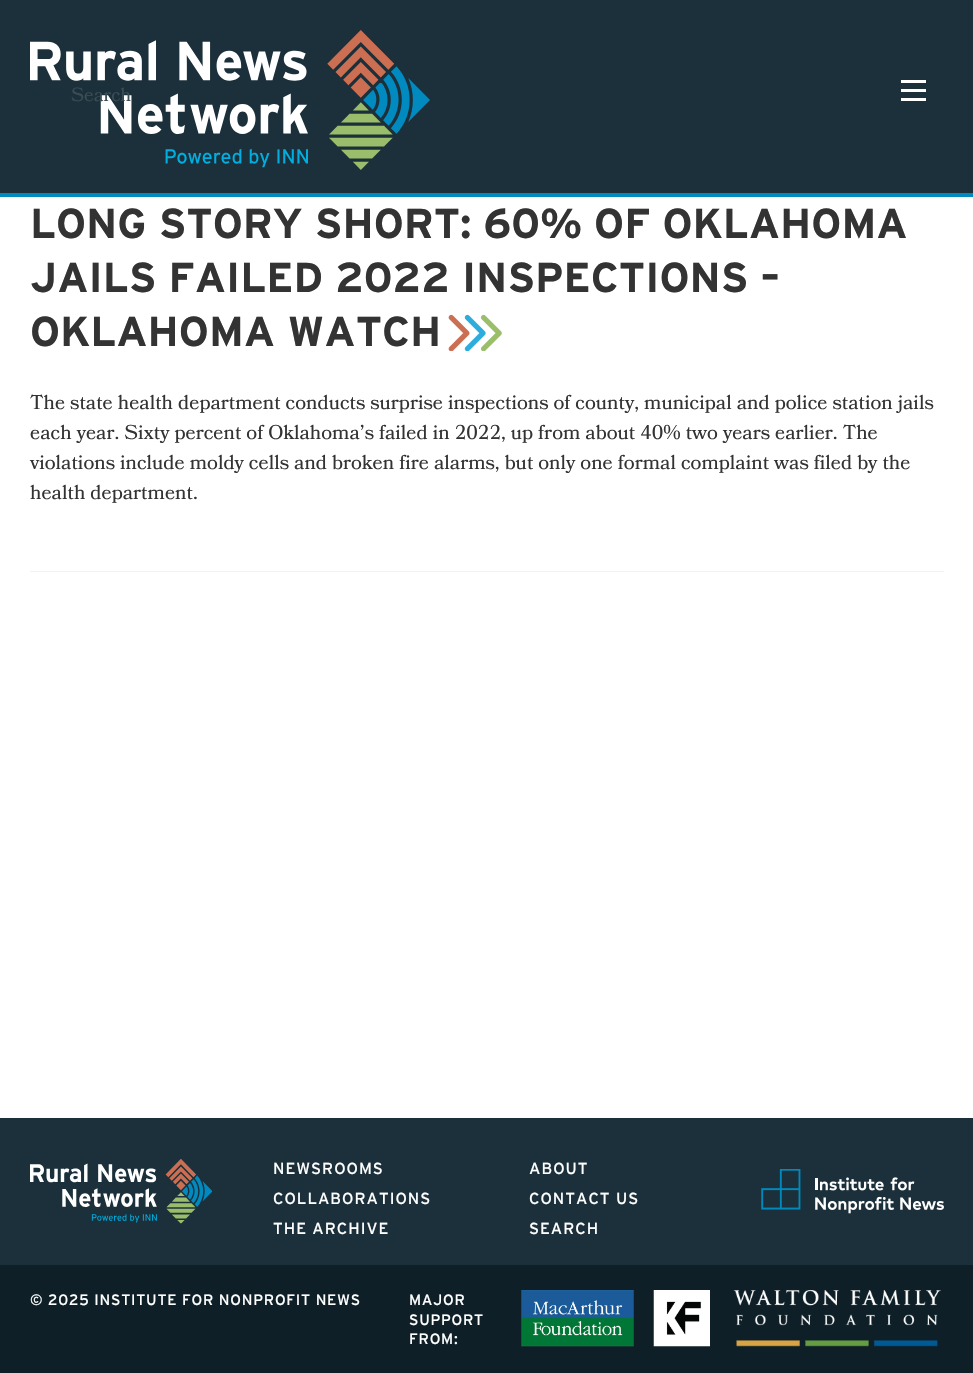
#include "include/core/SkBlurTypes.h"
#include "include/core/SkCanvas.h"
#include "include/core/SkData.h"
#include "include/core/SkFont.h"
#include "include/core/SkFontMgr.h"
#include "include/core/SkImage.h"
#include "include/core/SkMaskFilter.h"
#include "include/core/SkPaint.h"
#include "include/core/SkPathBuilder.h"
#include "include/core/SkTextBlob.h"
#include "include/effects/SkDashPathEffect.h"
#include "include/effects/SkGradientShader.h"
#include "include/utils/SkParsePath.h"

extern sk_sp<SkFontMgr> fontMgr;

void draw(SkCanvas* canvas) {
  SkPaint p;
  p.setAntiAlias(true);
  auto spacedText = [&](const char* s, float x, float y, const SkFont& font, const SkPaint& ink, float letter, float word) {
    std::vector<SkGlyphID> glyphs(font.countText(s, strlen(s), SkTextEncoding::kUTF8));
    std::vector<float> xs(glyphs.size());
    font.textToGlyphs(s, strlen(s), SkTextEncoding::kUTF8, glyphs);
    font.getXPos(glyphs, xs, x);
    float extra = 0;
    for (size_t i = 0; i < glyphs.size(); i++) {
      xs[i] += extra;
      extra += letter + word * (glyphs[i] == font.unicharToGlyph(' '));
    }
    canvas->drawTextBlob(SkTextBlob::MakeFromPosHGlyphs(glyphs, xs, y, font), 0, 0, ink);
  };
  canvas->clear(SK_ColorWHITE);
  p.setColor(SkColorSetRGB(27, 48, 58));
  canvas->drawRect(SkRect::MakeLTRB(0, 0, 973, 193), p);
  canvas->drawImageRect(SkImages::DeferredFromEncodedData(SkData::MakeFromFileName("images/1.png")), SkRect::MakeLTRB(30, 30, 430, 170), SkSamplingOptions());
  p.setColor(SK_ColorWHITE);
  canvas->drawRect(SkRect::MakeLTRB(901, 89, 926, 92), p);
  canvas->drawRect(SkRect::MakeLTRB(901, 80, 926, 83), p);
  canvas->drawRect(SkRect::MakeLTRB(901, 98, 926, 101), p);
  p.setColor(SkColorSetRGB(0, 139, 192));
  canvas->drawRect(SkRect::MakeLTRB(0, 193, 973, 197), p);
  canvas->drawImageRect(SkImages::DeferredFromEncodedData(SkData::MakeFromFileName("images/2.png")), SkRect::MakeLTRB(448, 314, 502, 351), SkSamplingOptions());
  p.setColor(SkColorSetRGB(242, 242, 242));
  canvas->drawRect(SkRect::MakeLTRB(30, 571, 944, 572), p);
  p.setColor(SkColorSetRGB(27, 48, 58));
  canvas->drawRect(SkRect::MakeLTRB(0, 1118, 973, 1265), p);
  canvas->drawImageRect(SkImages::DeferredFromEncodedData(SkData::MakeFromFileName("images/3.png")), SkRect::MakeLTRB(30, 1159, 213, 1224), SkSamplingOptions());
  canvas->drawImageRect(SkImages::DeferredFromEncodedData(SkData::MakeFromFileName("images/4.png")), SkRect::MakeLTRB(761, 1169, 944, 1214), SkSamplingOptions());
  p.setColor(SkColorSetRGB(14, 31, 39));
  canvas->drawRect(SkRect::MakeLTRB(0, 1265, 973, 1373), p);
  canvas->drawImageRect(SkImages::DeferredFromEncodedData(SkData::MakeFromFileName("images/5.png")), SkRect::MakeLTRB(521, 1290, 634, 1347), SkSamplingOptions());
  canvas->drawImageRect(SkImages::DeferredFromEncodedData(SkData::MakeFromFileName("images/6.png")), SkRect::MakeLTRB(653, 1290, 710, 1347), SkSamplingOptions());
  canvas->drawImageRect(SkImages::DeferredFromEncodedData(SkData::MakeFromFileName("images/7.png")), SkRect::MakeLTRB(733, 1290, 941, 1347), SkSamplingOptions());
  SkFont font1(fontMgr->matchFamilyStyle("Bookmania", SkFontStyle::Normal()), 19);
  font1.setSubpixel(true);
  p.setColor(SkColorSetRGB(58, 76, 84));
  canvas->drawString("Search", 71, 101, font1, p);
  SkFont font2(fontMgr->matchFamilyStyle("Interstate", SkFontStyle::Bold()), 41.85f);
  font2.setSubpixel(true);
  p.setColor(SkColorSetRGB(51, 51, 51));
  canvas->drawString("LONG STORY SHORT: 60% OF OKLAHOMA", 30, 238, font2, p);
  canvas->drawString("JAILS FAILED 2022 INSPECTIONS –", 30, 292, font2, p);
  canvas->drawString("OKLAHOMA WATCH", 30, 346, font2, p);
  SkFont font3(fontMgr->matchFamilyStyle("Bookmania", SkFontStyle::Normal()), 20);
  font3.setSubpixel(true);
  canvas->drawString("The state health department conducts surprise inspections of county, municipal and police station jails", 30, 409, font3, p);
  canvas->drawString("each year. Sixty percent of Oklahoma’s failed in 2022, up from about 40% two years earlier. The", 30, 439, font3, p);
  canvas->drawString("violations include moldy cells and broken fire alarms, but only one formal complaint was filed by the", 30, 469, font3, p);
  canvas->drawString("health department.", 30, 499, font3, p);
  SkFont font4(fontMgr->matchFamilyStyle("Interstate", SkFontStyle::Normal()), 16);
  font4.setSubpixel(true);
  p.setColor(SK_ColorWHITE);
  spacedText("NEWSROOMS", 273, 1174, font4, p, 1, 0);
  spacedText("ABOUT", 529, 1174, font4, p, 1, 0);
  spacedText("COLLABORATIONS", 273, 1204, font4, p, 1, 0);
  spacedText("CONTACT US", 529, 1204, font4, p, 1, 0);
  spacedText("THE ARCHIVE", 273, 1234, font4, p, 1, 0);
  spacedText("SEARCH", 529, 1234, font4, p, 1, 0);
  SkFont font5(fontMgr->matchFamilyStyle("Interstate", SkFontStyle::Normal()), 15);
  font5.setSubpixel(true);
  spacedText("© 2025 INSTITUTE FOR NONPROFIT NEWS", 30, 1305, font5, p, 0.75f, 0);
  spacedText("MAJOR", 409, 1305, font5, p, 0.75f, 0);
  spacedText("SUPPORT", 409, 1325, font5, p, 0.75f, 0);
  spacedText("FROM:", 409, 1344, font5, p, 0.75f, 0);
}
